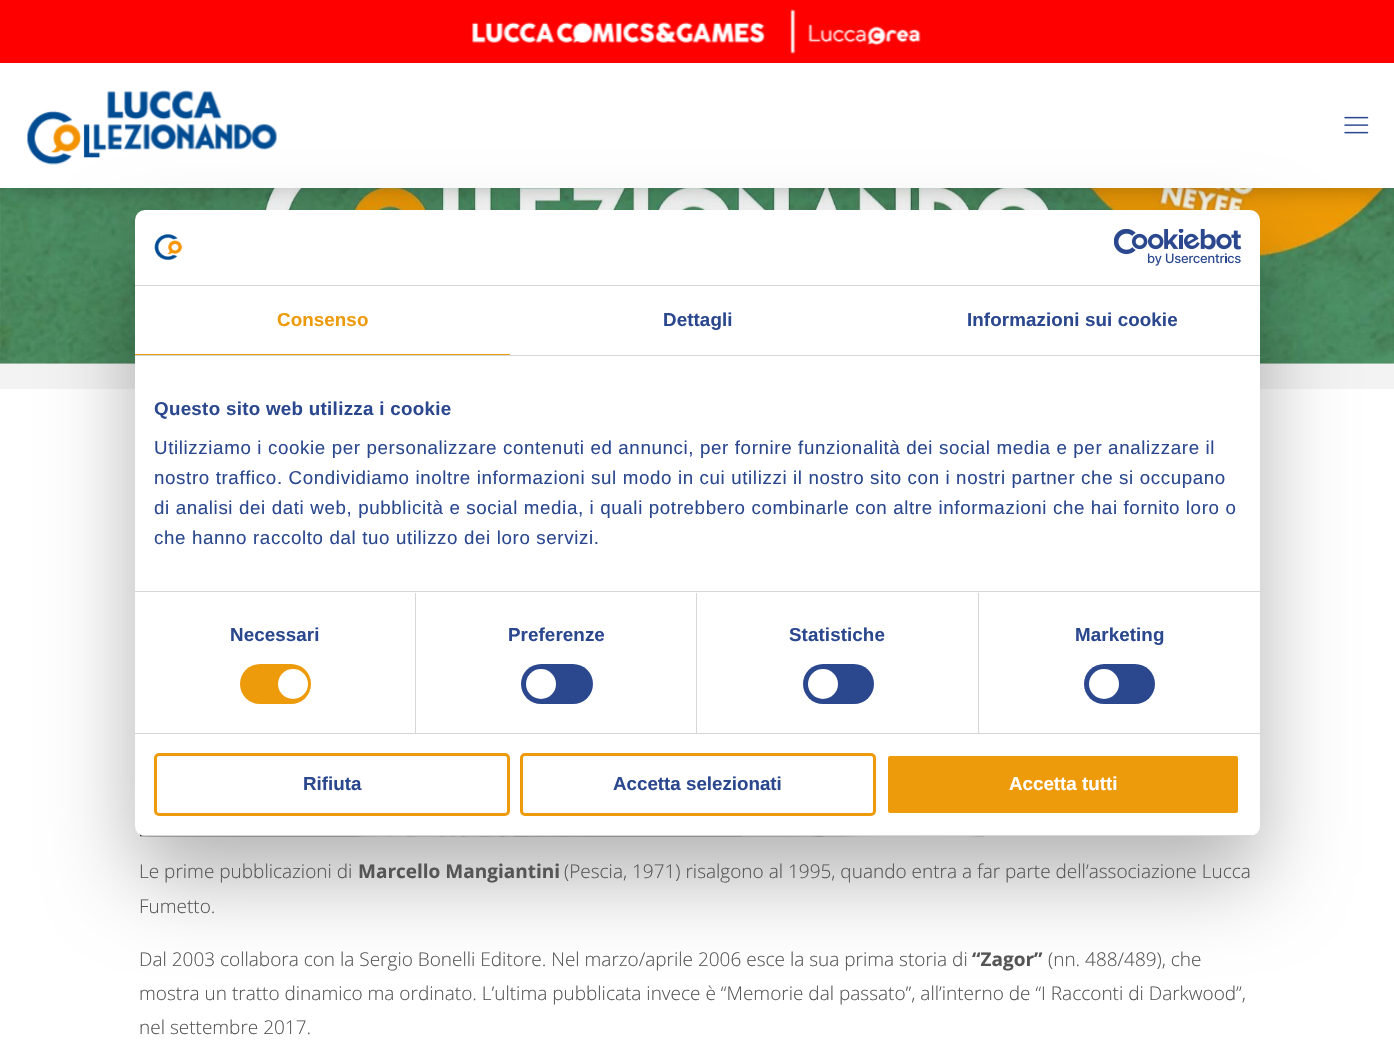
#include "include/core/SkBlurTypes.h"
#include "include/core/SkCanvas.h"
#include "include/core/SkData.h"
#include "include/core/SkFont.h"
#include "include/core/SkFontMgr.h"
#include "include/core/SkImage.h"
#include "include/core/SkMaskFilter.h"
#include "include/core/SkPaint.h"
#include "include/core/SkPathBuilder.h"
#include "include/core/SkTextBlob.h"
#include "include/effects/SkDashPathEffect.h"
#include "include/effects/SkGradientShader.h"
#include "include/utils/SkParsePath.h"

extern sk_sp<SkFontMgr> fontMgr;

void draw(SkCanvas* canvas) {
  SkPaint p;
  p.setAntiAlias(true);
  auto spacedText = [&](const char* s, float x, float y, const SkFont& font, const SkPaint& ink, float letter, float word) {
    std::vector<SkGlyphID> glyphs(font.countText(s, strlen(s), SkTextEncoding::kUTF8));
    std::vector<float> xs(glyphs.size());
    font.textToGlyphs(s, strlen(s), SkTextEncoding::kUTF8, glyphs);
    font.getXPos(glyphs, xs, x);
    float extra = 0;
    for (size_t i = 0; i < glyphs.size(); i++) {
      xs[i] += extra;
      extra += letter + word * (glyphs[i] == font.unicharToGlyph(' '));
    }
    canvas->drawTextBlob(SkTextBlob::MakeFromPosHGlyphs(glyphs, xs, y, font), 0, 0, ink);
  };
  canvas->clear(SkColorSetRGB(243, 243, 243));
  canvas->drawImageRect(SkImages::DeferredFromEncodedData(SkData::MakeFromFileName("images/8.png")), SkRect::MakeLTRB(0, 188, 1394, 364), SkSamplingOptions());
  p.setColor(SkColorSetARGB(77, 0, 0, 0));
  p.setMaskFilter(SkMaskFilter::MakeBlur(kNormal_SkBlurStyle, 12.5f));
  canvas->drawRect(SkRect::MakeLTRB(0, 63, 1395, 188), p);
  p.setMaskFilter(nullptr);
  p.setColor(SkColorSetRGB(255, 0, 0));
  canvas->drawRect(SkRect::MakeLTRB(0, 0, 1394, 63), p);
  canvas->drawImageRect(SkImages::DeferredFromEncodedData(SkData::MakeFromFileName("images/1.png")), SkRect::MakeLTRB(471, 22, 765, 43), SkSamplingOptions());
  canvas->drawImageRect(SkImages::DeferredFromEncodedData(SkData::MakeFromFileName("images/2.png")), SkRect::MakeLTRB(790, 9, 796, 54), SkSamplingOptions());
  canvas->drawImageRect(SkImages::DeferredFromEncodedData(SkData::MakeFromFileName("images/3.png")), SkRect::MakeLTRB(808, 23, 921, 46), SkSamplingOptions());
  p.setColor(SK_ColorWHITE);
  canvas->drawRect(SkRect::MakeLTRB(0, 63, 1394, 188), p);
  canvas->drawImageRect(SkImages::DeferredFromEncodedData(SkData::MakeFromFileName("images/6.png")), SkRect::MakeLTRB(27, 90, 277, 165), SkSamplingOptions());
  canvas->drawImageRect(SkImages::DeferredFromEncodedData(SkData::MakeFromFileName("images/7.png")), SkRect::MakeLTRB(1344, 116, 1369, 134), SkSamplingOptions());
  canvas->drawRect(SkRect::MakeLTRB(0, 389, 1394, 1045), p);
  canvas->drawImageRect(SkImages::DeferredFromEncodedData(SkData::MakeFromFileName("images/9.png")), SkRect::MakeLTRB(140, 834, 984, 837), SkSamplingOptions());
  p.setColor(SkColorSetARGB(77, 0, 0, 0));
  p.setMaskFilter(SkMaskFilter::MakeBlur(kNormal_SkBlurStyle, 42.5f));
  canvas->drawRoundRect(SkRect::MakeLTRB(135, 250, 1260, 876), 10, 10, p);
  p.setMaskFilter(nullptr);
  p.setColor(SK_ColorWHITE);
  canvas->drawRoundRect(SkRect::MakeLTRB(135, 210, 1260, 836), 10, 10, p);
  p.setColor(SkColorSetRGB(214, 214, 214));
  canvas->drawRect(SkRect::MakeLTRB(135, 285, 1260, 286), p);
  canvas->drawImageRect(SkImages::DeferredFromEncodedData(SkData::MakeFromFileName("images/4.png")), SkRect::MakeLTRB(154, 234, 183, 261), SkSamplingOptions());
  canvas->drawImageRect(SkImages::DeferredFromEncodedData(SkData::MakeFromFileName("images/5.png")), SkRect::MakeLTRB(1114, 229, 1241, 266), SkSamplingOptions());
  canvas->drawRect(SkRect::MakeLTRB(135, 355, 1260, 356), p);
  p.setColor(SkColorSetRGB(238, 155, 11));
  canvas->drawRect(SkRect::MakeLTRB(135, 354, 510, 355), p);
  p.setColor(SkColorSetRGB(214, 214, 214));
  canvas->drawRect(SkRect::MakeLTRB(135, 591, 1260, 592), p);
  canvas->drawRect(SkRect::MakeLTRB(135, 733, 1260, 734), p);
  canvas->drawRect(SkRect::MakeLTRB(415, 593, 416, 733), p);
  p.setColor(SkColorSetRGB(238, 155, 11));
  canvas->drawRoundRect(SkRect::MakeLTRB(240, 664, 311, 704), 20, 20, p);
  p.setColor(SK_ColorWHITE);
  canvas->drawCircle(293, 684, 15, p);
  p.setColor(SkColorSetRGB(214, 214, 214));
  canvas->drawRect(SkRect::MakeLTRB(696, 593, 697, 733), p);
  p.setColor(SkColorSetRGB(43, 72, 143));
  canvas->drawRoundRect(SkRect::MakeLTRB(521, 664, 593, 704), 20, 20, p);
  p.setColor(SK_ColorWHITE);
  canvas->drawCircle(541, 684, 15, p);
  p.setColor(SkColorSetRGB(214, 214, 214));
  canvas->drawRect(SkRect::MakeLTRB(978, 593, 979, 733), p);
  p.setColor(SkColorSetRGB(43, 72, 143));
  canvas->drawRoundRect(SkRect::MakeLTRB(803, 664, 874, 704), 20, 20, p);
  p.setColor(SK_ColorWHITE);
  canvas->drawCircle(823, 684, 15, p);
  p.setColor(SkColorSetRGB(43, 72, 143));
  canvas->drawRoundRect(SkRect::MakeLTRB(1084, 664, 1155, 704), 20, 20, p);
  p.setColor(SK_ColorWHITE);
  canvas->drawCircle(1104, 684, 15, p);
  canvas->save();
  canvas->clipPath(SkPathBuilder().moveTo(145, 210).lineTo(1250, 210).cubicTo(1255.5f, 210, 1260, 214.5f, 1260, 220).lineTo(1260, 826).cubicTo(1260, 831.5f, 1255.5f, 836, 1250, 836).lineTo(145, 836).cubicTo(139.5f, 836, 135, 831.5f, 135, 826).lineTo(135, 220).cubicTo(135, 214.5f, 139.5f, 210, 145, 210).close().detach(), true);
  p.setColor(SkColorSetRGB(214, 214, 214));
  canvas->drawRect(SkRect::MakeLTRB(135, 835, 1260, 836), p);
  canvas->restore();
  p.setStyle(SkPaint::kStroke_Style);
  p.setStrokeWidth(3);
  p.setColor(SkColorSetRGB(238, 155, 11));
  canvas->drawRoundRect(SkRect::MakeLTRB(155.5f, 754.5f, 508.5f, 814.5f), 3.5f, 3.5f, p);
  canvas->drawRoundRect(SkRect::MakeLTRB(521.5f, 754.5f, 874.5f, 814.5f), 3.5f, 3.5f, p);
  p.setStyle(SkPaint::kFill_Style);
  canvas->drawRoundRect(SkRect::MakeLTRB(886.5f, 754.5f, 1239.5f, 814.5f), 3.5f, 3.5f, p);
  p.setStyle(SkPaint::kStroke_Style);
  p.setColor(SK_ColorWHITE);
  canvas->drawRoundRect(SkRect::MakeLTRB(886.5f, 754.5f, 1239.5f, 814.5f), 3.5f, 3.5f, p);
  SkFont font1(fontMgr->matchFamilyStyle("Liberation Sans", SkFontStyle::Bold()), 18.75f);
  font1.setSubpixel(true);
  p.setStyle(SkPaint::kFill_Style);
  p.setColor(SkColorSetRGB(238, 155, 11));
  spacedText("Consenso", 277, 326, font1, p, 0.1f, 0);
  p.setColor(SkColorSetRGB(43, 72, 143));
  spacedText("Dettagli", 663, 326, font1, p, 0.1f, 0);
  spacedText("Informazioni sui cookie", 967, 326, font1, p, 0.1f, 0);
  spacedText("Questo sito web utilizza i cookie", 154, 415, font1, p, 0.3f, 0);
  SkFont font2(fontMgr->matchFamilyStyle("Liberation Sans", SkFontStyle::Normal()), 18.75f);
  font2.setSubpixel(true);
  spacedText("Utilizziamo i cookie per personalizzare contenuti ed annunci, per fornire funzionalità dei social media e per analizzare il", 154, 454, font2, p, 0.62f, 0);
  spacedText("nostro traffico. Condividiamo inoltre informazioni sul modo in cui utilizzi il nostro sito con i nostri partner che si occupano", 154, 484, font2, p, 0.62f, 0);
  spacedText("di analisi dei dati web, pubblicità e social media, i quali potrebbero combinarle con altre informazioni che hai fornito loro o", 154, 514, font2, p, 0.62f, 0);
  spacedText("che hanno raccolto dal tuo utilizzo dei loro servizi.", 154, 544, font2, p, 0.62f, 0);
  spacedText("Necessari", 230, 641, font1, p, 0.1f, 0);
  spacedText("Preferenze", 508, 641, font1, p, 0.1f, 0);
  spacedText("Statistiche", 789, 641, font1, p, 0.1f, 0);
  spacedText("Marketing", 1075, 641, font1, p, 0.1f, 0);
  canvas->drawString("Rifiuta", 303, 790, font1, p);
  canvas->drawString("Accetta selezionati", 613, 790, font1, p);
  p.setColor(SK_ColorWHITE);
  canvas->drawString("Accetta tutti", 1009, 790, font1, p);
  SkFont font3(fontMgr->matchFamilyStyle("Open Sans", SkFontStyle(300, SkFontStyle::kNormal_Width, SkFontStyle::kUpright_Slant)), 19);
  font3.setSubpixel(true);
  p.setColor(SkColorSetRGB(85, 85, 85));
  canvas->drawString("Le prime pubblicazioni di", 139, 878, font3, p);
  SkFont font4(fontMgr->matchFamilyStyle("Open Sans", SkFontStyle::Bold()), 19);
  font4.setSubpixel(true);
  canvas->drawString("Marcello Mangiantini", 358, 878, font4, p);
  canvas->drawString("(Pescia, 1971) risalgono al 1995, quando entra a far parte dell’associazione Lucca", 564, 878, font3, p);
  canvas->drawString("Fumetto.", 139, 913, font3, p);
  canvas->drawString("Dal 2003 collabora con la Sergio Bonelli Editore. Nel marzo/aprile 2006 esce la sua prima storia di", 139, 966, font3, p);
  canvas->drawString("“Zagor”", 972, 966, font4, p);
  canvas->drawString("(nn. 488/489), che", 1048, 966, font3, p);
  canvas->drawString("mostra un tratto dinamico ma ordinato. L’ultima pubblicata invece è “Memorie dal passato”, all’interno de “I Racconti di Darkwood”,", 139, 1000, font3, p);
  canvas->drawString("nel settembre 2017.", 139, 1034, font3, p);
}
